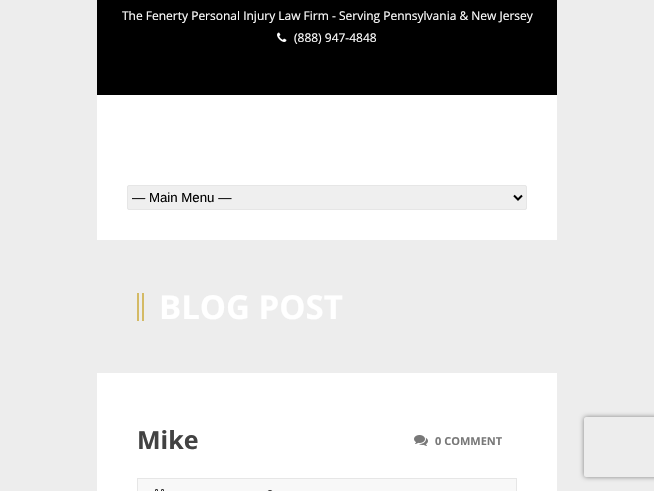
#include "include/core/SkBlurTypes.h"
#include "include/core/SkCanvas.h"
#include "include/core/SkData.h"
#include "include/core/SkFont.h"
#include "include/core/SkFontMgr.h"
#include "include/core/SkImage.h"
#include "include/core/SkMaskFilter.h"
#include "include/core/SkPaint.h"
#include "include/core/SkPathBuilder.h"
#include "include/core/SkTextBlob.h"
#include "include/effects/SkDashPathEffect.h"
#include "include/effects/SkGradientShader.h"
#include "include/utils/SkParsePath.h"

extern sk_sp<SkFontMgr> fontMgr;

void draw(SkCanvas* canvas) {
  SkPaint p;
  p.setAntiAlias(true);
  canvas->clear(SkColorSetRGB(237, 237, 237));
  p.setColor(SK_ColorBLACK);
  canvas->drawRect(SkRect::MakeLTRB(97, 0, 557, 95), p);
  canvas->drawImageRect(SkImages::DeferredFromEncodedData(SkData::MakeFromFileName("images/1.png")), SkRect::MakeLTRB(277, 32, 287, 42), SkSamplingOptions());
  p.setColor(SK_ColorWHITE);
  canvas->drawRect(SkRect::MakeLTRB(97, 95, 557, 240), p);
  p.setColor(SkColorSetRGB(239, 239, 239));
  canvas->drawRoundRect(SkRect::MakeLTRB(127.5f, 185.5f, 526.5f, 209.5f), 1.5f, 1.5f, p);
  p.setStyle(SkPaint::kStroke_Style);
  p.setStrokeWidth(1);
  p.setColor(SkColorSetRGB(230, 230, 230));
  canvas->drawRoundRect(SkRect::MakeLTRB(127.5f, 185.5f, 526.5f, 209.5f), 1.5f, 1.5f, p);
  p.setStrokeWidth(2);
  p.setColor(SK_ColorBLACK);
  canvas->drawPath(SkPathBuilder().moveTo(514, 195.5f).lineTo(518, 199.5f).lineTo(522, 195.5f).detach(), p);
  p.setStyle(SkPaint::kFill_Style);
  p.setColor(SkColorSetRGB(212, 186, 101));
  canvas->drawRect(SkRect::MakeLTRB(137, 293, 139, 321), p);
  canvas->drawRect(SkRect::MakeLTRB(142, 293, 144, 321), p);
  p.setColor(SK_ColorWHITE);
  canvas->drawRect(SkRect::MakeLTRB(97, 373, 557, 491), p);
  canvas->drawImageRect(SkImages::DeferredFromEncodedData(SkData::MakeFromFileName("images/2.png")), SkRect::MakeLTRB(414, 435, 428, 446), SkSamplingOptions());
  p.setColor(SkColorSetRGB(248, 248, 248));
  canvas->drawRect(SkRect::MakeLTRB(137.5f, 478.5f, 516.5f, 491.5f), p);
  p.setStyle(SkPaint::kStroke_Style);
  p.setStrokeWidth(1);
  p.setColor(SkColorSetRGB(230, 230, 230));
  canvas->drawRect(SkRect::MakeLTRB(137.5f, 478.5f, 516.5f, 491.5f), p);
  canvas->drawImageRect(SkImages::DeferredFromEncodedData(SkData::MakeFromFileName("images/3.png")), SkRect::MakeLTRB(155, 489, 164, 491), SkSamplingOptions());
  canvas->drawImageRect(SkImages::DeferredFromEncodedData(SkData::MakeFromFileName("images/4.png")), SkRect::MakeLTRB(267, 490, 273, 491), SkSamplingOptions());
  canvas->save();
  canvas->clipPath(SkPathBuilder(SkPathFillType::kEvenOdd).moveTo(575, 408).lineTo(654, 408).lineTo(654, 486).lineTo(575, 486).close().moveTo(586, 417).lineTo(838, 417).cubicTo(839, 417, 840, 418, 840, 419).lineTo(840, 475).cubicTo(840, 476, 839, 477, 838, 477).lineTo(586, 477).cubicTo(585, 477, 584, 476, 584, 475).lineTo(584, 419).cubicTo(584, 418, 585, 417, 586, 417).close().detach(), true);
  p.setStyle(SkPaint::kFill_Style);
  p.setColor(SkColorSetRGB(128, 128, 128));
  p.setMaskFilter(SkMaskFilter::MakeBlur(kNormal_SkBlurStyle, 2.5f));
  canvas->drawRoundRect(SkRect::MakeLTRB(584, 417, 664, 477), 2, 2, p);
  p.setMaskFilter(nullptr);
  canvas->restore();
  SkFont font1(fontMgr->matchFamilyStyle("Open Sans", SkFontStyle::Normal()), 12);
  font1.setSubpixel(true);
  p.setColor(SK_ColorWHITE);
  canvas->drawString("The Fenerty Personal Injury Law Firm - Serving Pennsylvania & New Jersey", 122, 20, font1, p);
  canvas->drawString("(888) 947-4848", 294, 42, font1, p);
  SkFont font2(fontMgr->matchFamilyStyle("Liberation Sans", SkFontStyle::Normal()), 13.25f);
  font2.setSubpixel(true);
  p.setColor(SK_ColorBLACK);
  canvas->drawString("— Main Menu —", 132, 202, font2, p);
  SkFont font3(fontMgr->matchFamilyStyle("Open Sans", SkFontStyle::Bold()), 33);
  font3.setSubpixel(true);
  p.setColor(SK_ColorWHITE);
  canvas->drawString("BLOG POST", 159, 319, font3, p);
  SkFont font4(fontMgr->matchFamilyStyle("Open Sans", SkFontStyle::Bold()), 25);
  font4.setSubpixel(true);
  p.setColor(SkColorSetRGB(66, 66, 66));
  canvas->drawString("Mike", 137, 449, font4, p);
  SkFont font5(fontMgr->matchFamilyStyle("Open Sans", SkFontStyle::Bold()), 11);
  font5.setSubpixel(true);
  p.setColor(SkColorSetRGB(120, 120, 120));
  canvas->drawString("0 COMMENT", 435, 445, font5, p);
}
